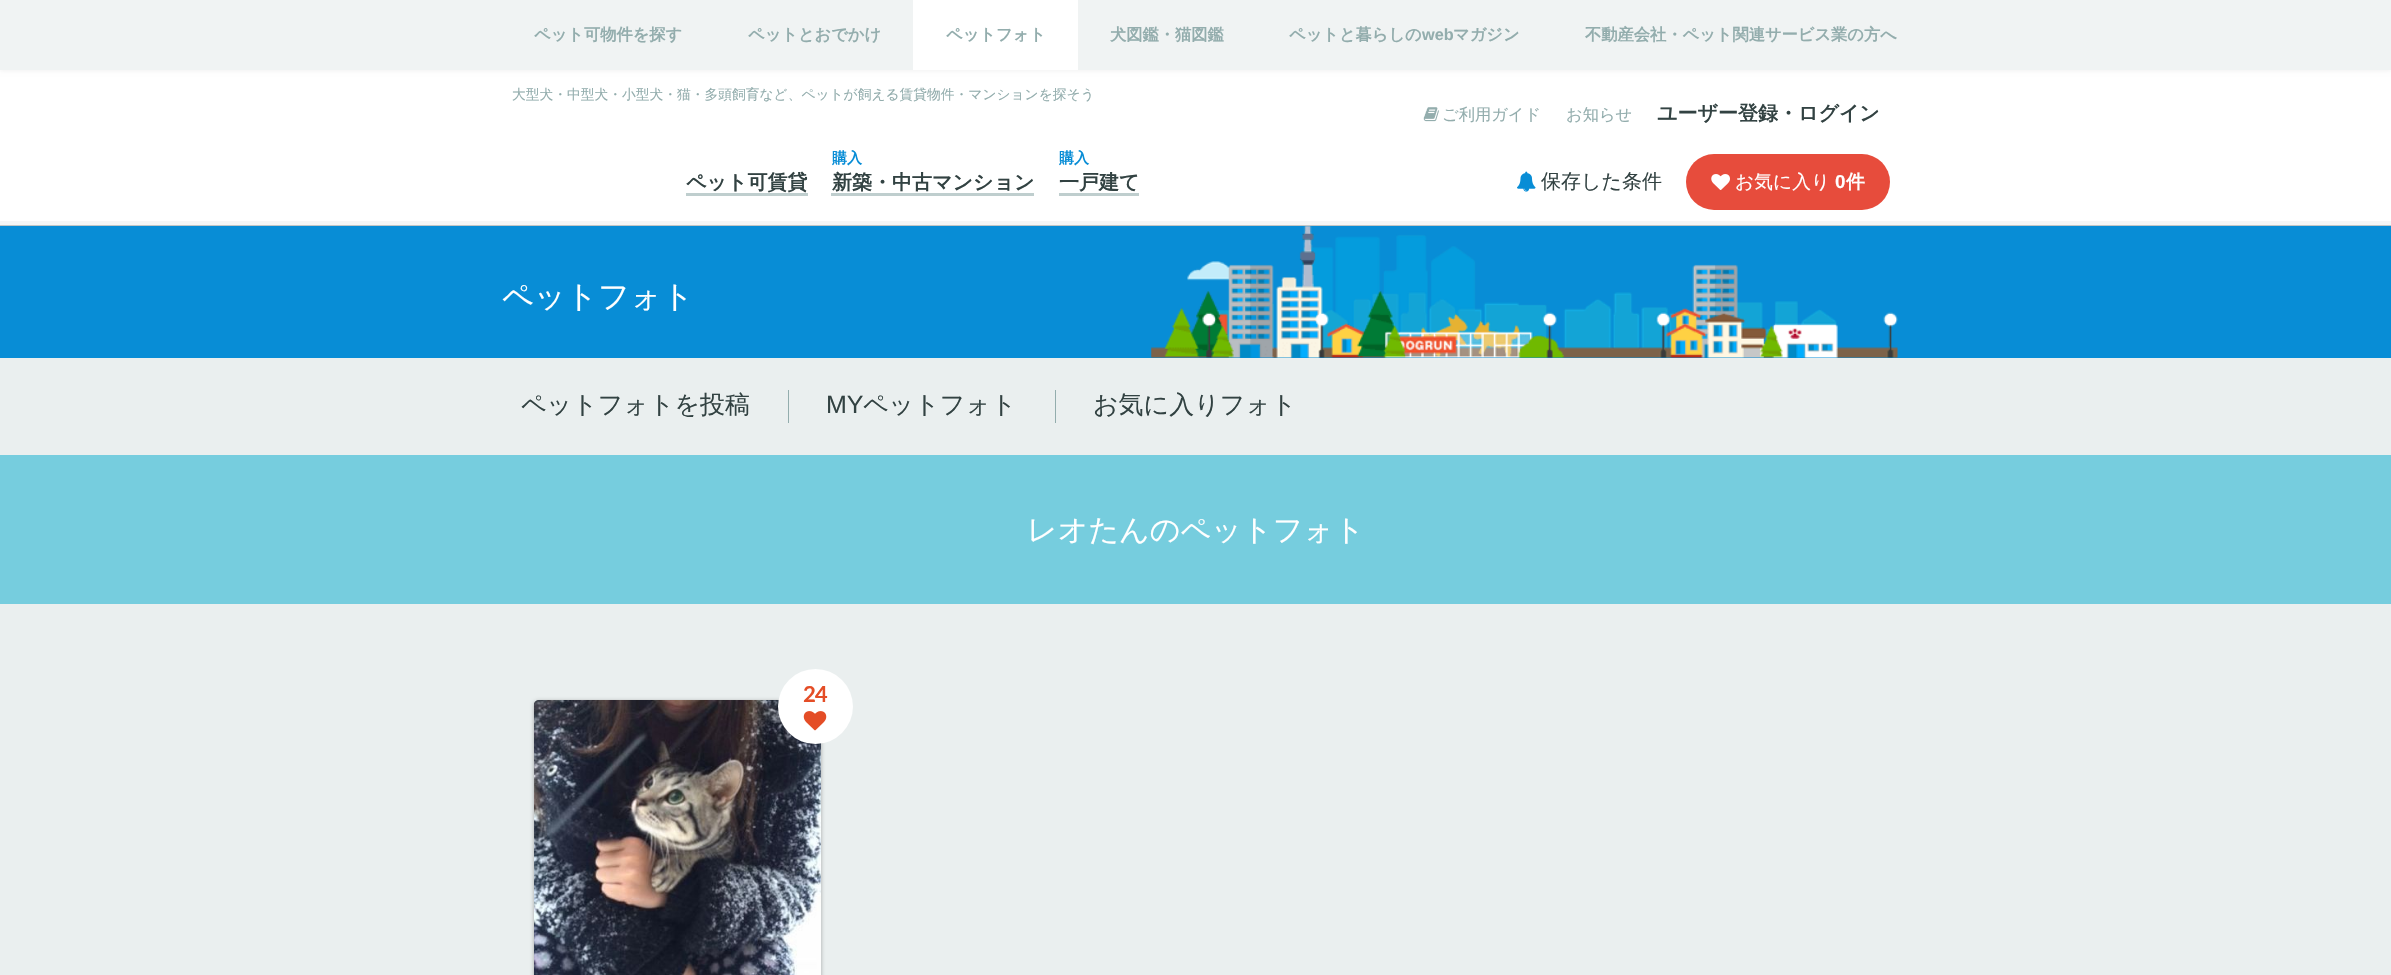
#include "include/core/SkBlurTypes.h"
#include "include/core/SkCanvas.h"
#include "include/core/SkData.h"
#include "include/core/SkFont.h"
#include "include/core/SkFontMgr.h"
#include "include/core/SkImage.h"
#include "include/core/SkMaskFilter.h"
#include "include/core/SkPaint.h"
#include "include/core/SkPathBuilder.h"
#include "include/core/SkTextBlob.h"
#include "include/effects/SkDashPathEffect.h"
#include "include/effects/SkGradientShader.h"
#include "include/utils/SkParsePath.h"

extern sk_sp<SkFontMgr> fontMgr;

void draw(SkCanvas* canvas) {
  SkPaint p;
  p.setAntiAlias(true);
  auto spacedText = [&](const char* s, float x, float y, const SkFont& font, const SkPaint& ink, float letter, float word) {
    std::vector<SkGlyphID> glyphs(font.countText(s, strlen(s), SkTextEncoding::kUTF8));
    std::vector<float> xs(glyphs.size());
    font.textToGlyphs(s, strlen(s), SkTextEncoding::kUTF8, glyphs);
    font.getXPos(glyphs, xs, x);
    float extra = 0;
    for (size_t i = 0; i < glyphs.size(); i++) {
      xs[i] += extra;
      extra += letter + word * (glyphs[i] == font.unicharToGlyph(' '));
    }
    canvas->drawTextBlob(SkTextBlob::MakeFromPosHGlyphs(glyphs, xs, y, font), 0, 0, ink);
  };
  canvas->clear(SkColorSetRGB(234, 239, 239));
  p.setColor(SK_ColorWHITE);
  canvas->drawRect(SkRect::MakeLTRB(0, 70, 2391, 221), p);
  p.setColor(SkColorSetARGB(13, 0, 0, 0));
  p.setMaskFilter(SkMaskFilter::MakeBlur(kNormal_SkBlurStyle, 2));
  canvas->drawRect(SkRect::MakeLTRB(0, 1, 2391, 71), p);
  p.setMaskFilter(nullptr);
  p.setColor(SkColorSetRGB(240, 243, 243));
  canvas->drawRect(SkRect::MakeLTRB(0, 0, 2391, 70), p);
  p.setColor(SK_ColorWHITE);
  canvas->drawRect(SkRect::MakeLTRB(913, 0, 1078, 70), p);
  p.setColor(SkColorSetRGB(245, 246, 246));
  canvas->drawRect(SkRect::MakeLTRB(0, 221, 2391, 225), p);
  p.setColor(SkColorSetRGB(194, 198, 198));
  canvas->drawRect(SkRect::MakeLTRB(0, 225, 2391, 226), p);
  canvas->drawImageRect(SkImages::DeferredFromEncodedData(SkData::MakeFromFileName("images/1.png")), SkRect::MakeLTRB(1423, 107, 1439, 122), SkSamplingOptions());
  p.setColor(SkColorSetRGB(191, 206, 206));
  canvas->drawRect(SkRect::MakeLTRB(686, 193, 808, 196), p);
  canvas->drawRect(SkRect::MakeLTRB(831, 193, 1034, 196), p);
  canvas->drawRect(SkRect::MakeLTRB(1059, 193, 1139, 196), p);
  canvas->drawImageRect(SkImages::DeferredFromEncodedData(SkData::MakeFromFileName("images/2.png")), SkRect::MakeLTRB(1517, 171, 1536, 192), SkSamplingOptions());
  p.setColor(SkColorSetRGB(231, 76, 60));
  canvas->drawRoundRect(SkRect::MakeLTRB(1686, 154, 1890, 210), 28, 28, p);
  canvas->drawImageRect(SkImages::DeferredFromEncodedData(SkData::MakeFromFileName("images/3.png")), SkRect::MakeLTRB(1711, 174, 1730, 190), SkSamplingOptions());
  p.setColor(SkColorSetRGB(8, 141, 214));
  canvas->drawRect(SkRect::MakeLTRB(0, 226, 2391, 358), p);
  canvas->drawImageRect(SkImages::DeferredFromEncodedData(SkData::MakeFromFileName("images/4.png")), SkRect::MakeLTRB(1151, 226, 1898, 358), SkSamplingOptions());
  p.setColor(SkColorSetRGB(147, 173, 173));
  canvas->drawRect(SkRect::MakeLTRB(788, 390, 789, 423), p);
  canvas->drawRect(SkRect::MakeLTRB(1055, 390, 1056, 423), p);
  p.setColor(SkColorSetRGB(118, 205, 222));
  canvas->drawRect(SkRect::MakeLTRB(0, 455, 2391, 604), p);
  p.setColor(SkColorSetARGB(77, 0, 0, 0));
  p.setMaskFilter(SkMaskFilter::MakeBlur(kNormal_SkBlurStyle, 2));
  canvas->drawRoundRect(SkRect::MakeLTRB(534, 701, 821, 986), 5, 5, p);
  p.setMaskFilter(nullptr);
  canvas->drawImageRect(SkImages::DeferredFromEncodedData(SkData::MakeFromFileName("images/6.png")), SkRect::MakeLTRB(534, 700, 821, 975), SkSamplingOptions());
  p.setColor(SK_ColorWHITE);
  canvas->drawCircle(815.5f, 706.5f, 37.5f, p);
  canvas->drawImageRect(SkImages::DeferredFromEncodedData(SkData::MakeFromFileName("images/5.png")), SkRect::MakeLTRB(803, 711, 827, 731), SkSamplingOptions());
  SkFont font1(fontMgr->matchFamilyStyle("WenQuanYi Zen Hei", SkFontStyle::Bold()), 16.25f);
  font1.setSubpixel(true);
  p.setColor(SkColorSetRGB(147, 173, 173));
  canvas->drawString("ペット可物件を探す", 534, 40, font1, p);
  canvas->drawString("ペットとおでかけ", 748, 40, font1, p);
  canvas->drawString("ペットフォト", 946, 40, font1, p);
  canvas->drawString("犬図鑑・猫図鑑", 1110, 40, font1, p);
  canvas->drawString("ペットと暮らしの", 1289, 40, font1, p);
  SkFont font2(fontMgr->matchFamilyStyle("Liberation Sans", SkFontStyle::Bold()), 16.25f);
  font2.setSubpixel(true);
  canvas->drawString("web", 1422, 40, font2, p);
  canvas->drawString("マガジン", 1453, 40, font1, p);
  canvas->drawString("不動産会社・ペット関連サービス業の方へ", 1585, 40, font1, p);
  SkFont font3(fontMgr->matchFamilyStyle("WenQuanYi Zen Hei", SkFontStyle(500, SkFontStyle::kNormal_Width, SkFontStyle::kUpright_Slant)), 13.75f);
  font3.setSubpixel(true);
  canvas->drawString("大型犬・中型犬・小型犬・猫・多頭飼育など、ペットが飼える賃貸物件・マンションを探そう", 512, 99, font3, p);
  SkFont font4(fontMgr->matchFamilyStyle("WenQuanYi Zen Hei", SkFontStyle(500, SkFontStyle::kNormal_Width, SkFontStyle::kUpright_Slant)), 16.25f);
  font4.setSubpixel(true);
  canvas->drawString("ご利用ガイド", 1442, 120, font4, p);
  canvas->drawString("お知らせ", 1566, 120, font4, p);
  SkFont font5(fontMgr->matchFamilyStyle("WenQuanYi Zen Hei", SkFontStyle::Bold()), 20);
  font5.setSubpixel(true);
  p.setColor(SkColorSetRGB(50, 66, 66));
  canvas->drawString("ユーザー登録・ログイン", 1657, 120, font5, p);
  canvas->drawString("ペット可賃貸", 686, 189, font5, p);
  SkFont font6(fontMgr->matchFamilyStyle("WenQuanYi Zen Hei", SkFontStyle::Bold()), 15);
  font6.setSubpixel(true);
  p.setColor(SkColorSetRGB(8, 141, 214));
  canvas->drawString("購入", 832, 163, font6, p);
  p.setColor(SkColorSetRGB(50, 66, 66));
  canvas->drawString("新築・中古マンション", 832, 189, font5, p);
  p.setColor(SkColorSetRGB(8, 141, 214));
  canvas->drawString("購入", 1059, 163, font6, p);
  p.setColor(SkColorSetRGB(50, 66, 66));
  canvas->drawString("一戸建て", 1059, 189, font5, p);
  SkFont font7(fontMgr->matchFamilyStyle("WenQuanYi Zen Hei", SkFontStyle(500, SkFontStyle::kNormal_Width, SkFontStyle::kUpright_Slant)), 20);
  font7.setSubpixel(true);
  canvas->drawString("保存した条件", 1541, 188, font7, p);
  SkFont font8(fontMgr->matchFamilyStyle("WenQuanYi Zen Hei", SkFontStyle(500, SkFontStyle::kNormal_Width, SkFontStyle::kUpright_Slant)), 18.75f);
  font8.setSubpixel(true);
  p.setColor(SK_ColorWHITE);
  canvas->drawString("お気に入り", 1735, 188, font8, p);
  SkFont font9(fontMgr->matchFamilyStyle("Liberation Sans", SkFontStyle::Bold()), 18.75f);
  font9.setSubpixel(true);
  canvas->drawString("0", 1835, 188, font9, p);
  SkFont font10(fontMgr->matchFamilyStyle("WenQuanYi Zen Hei", SkFontStyle::Bold()), 18.75f);
  font10.setSubpixel(true);
  canvas->drawString("件", 1846, 188, font10, p);
  SkFont font11(fontMgr->matchFamilyStyle("WenQuanYi Zen Hei", SkFontStyle(500, SkFontStyle::kNormal_Width, SkFontStyle::kUpright_Slant)), 31.25f);
  font11.setSubpixel(true);
  canvas->drawString("ペットフォト", 502, 307, font11, p);
  SkFont font12(fontMgr->matchFamilyStyle("WenQuanYi Zen Hei", SkFontStyle(500, SkFontStyle::kNormal_Width, SkFontStyle::kUpright_Slant)), 25);
  font12.setSubpixel(true);
  p.setColor(SkColorSetRGB(50, 66, 66));
  canvas->drawString("ペットフォトを投稿", 521, 413, font12, p);
  SkFont font13(fontMgr->matchFamilyStyle("Liberation Sans", SkFontStyle::Normal()), 25);
  font13.setSubpixel(true);
  canvas->drawString("MY", 826, 413, font13, p);
  canvas->drawString("ペットフォト", 863, 413, font12, p);
  canvas->drawString("お気に入りフォト", 1093, 413, font12, p);
  SkFont font14(fontMgr->matchFamilyStyle("WenQuanYi Zen Hei", SkFontStyle(500, SkFontStyle::kNormal_Width, SkFontStyle::kUpright_Slant)), 30);
  font14.setSubpixel(true);
  p.setColor(SK_ColorWHITE);
  canvas->drawString("レオたんのペットフォト", 1027, 540, font14, p);
  SkFont font15(fontMgr->matchFamilyStyle("Lato", SkFontStyle::Bold()), 22);
  font15.setSubpixel(true);
  p.setColor(SkColorSetRGB(228, 77, 38));
  spacedText("24", 803, 702, font15, p, -1, 0);
}
